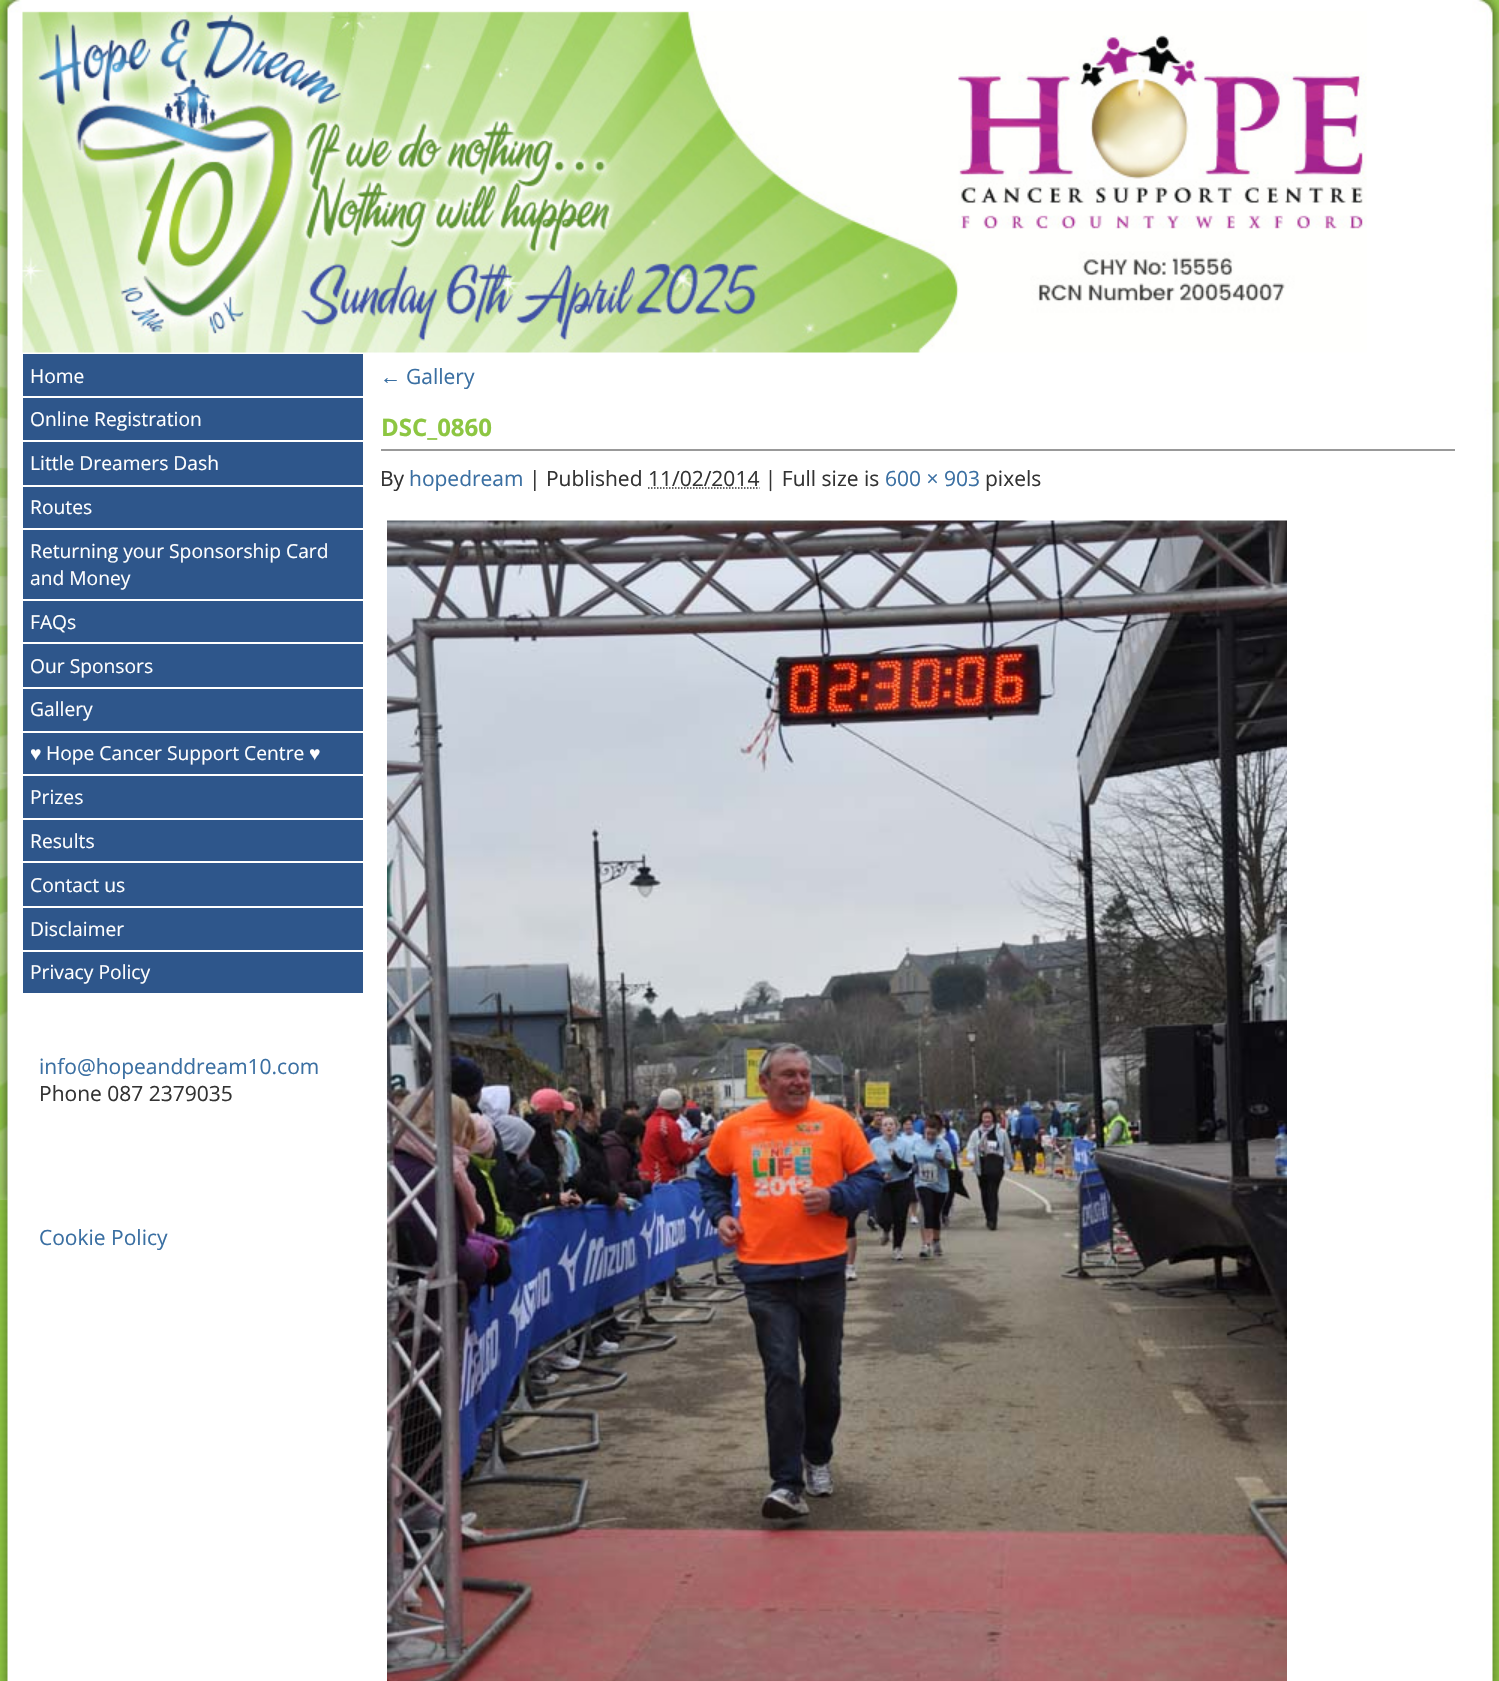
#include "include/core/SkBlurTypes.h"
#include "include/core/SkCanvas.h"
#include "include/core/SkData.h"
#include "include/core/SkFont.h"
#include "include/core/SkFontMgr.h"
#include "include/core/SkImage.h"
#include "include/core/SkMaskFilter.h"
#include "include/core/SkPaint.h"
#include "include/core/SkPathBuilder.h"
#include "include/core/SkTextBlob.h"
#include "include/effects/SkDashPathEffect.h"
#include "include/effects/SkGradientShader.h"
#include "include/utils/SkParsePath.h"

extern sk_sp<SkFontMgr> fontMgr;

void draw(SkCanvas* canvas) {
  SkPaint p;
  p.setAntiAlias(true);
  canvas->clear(SkColorSetRGB(142, 198, 66));
  canvas->drawImageRect(SkImages::DeferredFromEncodedData(SkData::MakeFromFileName("images/1.png")), SkRect::MakeLTRB(0, 1200, 1499, 1681), SkSamplingOptions());
  canvas->drawImageRect(SkImages::DeferredFromEncodedData(SkData::MakeFromFileName("images/2.png")), SkRect::MakeLTRB(0, 0, 1499, 1200), SkSamplingOptions());
  canvas->drawImageRect(SkImages::DeferredFromEncodedData(SkData::MakeFromFileName("images/3.png")), SkRect::MakeLTRB(22, 11, 1367, 353), SkSamplingOptions());
  p.setColor(SkColorSetRGB(46, 86, 139));
  canvas->drawRect(SkRect::MakeLTRB(23, 354, 363, 993), p);
  p.setColor(SK_ColorWHITE);
  canvas->drawRect(SkRect::MakeLTRB(23, 396, 363, 398), p);
  canvas->drawRect(SkRect::MakeLTRB(23, 440, 363, 442), p);
  canvas->drawRect(SkRect::MakeLTRB(23, 485, 363, 487), p);
  canvas->drawRect(SkRect::MakeLTRB(23, 528, 363, 530), p);
  canvas->drawRect(SkRect::MakeLTRB(23, 599, 363, 601), p);
  canvas->drawRect(SkRect::MakeLTRB(23, 642, 363, 644), p);
  canvas->drawRect(SkRect::MakeLTRB(23, 687, 363, 689), p);
  canvas->drawRect(SkRect::MakeLTRB(23, 731, 363, 733), p);
  canvas->drawRect(SkRect::MakeLTRB(23, 774, 363, 776), p);
  canvas->drawRect(SkRect::MakeLTRB(23, 818, 363, 820), p);
  canvas->drawRect(SkRect::MakeLTRB(23, 861, 363, 863), p);
  canvas->drawRect(SkRect::MakeLTRB(23, 906, 363, 908), p);
  canvas->drawRect(SkRect::MakeLTRB(23, 950, 363, 952), p);
  p.setColor(SkColorSetRGB(153, 153, 153));
  canvas->drawRect(SkRect::MakeLTRB(381, 449, 1455, 451), p);
  p.setStyle(SkPaint::kStroke_Style);
  p.setStrokeWidth(1.5f);
  p.setColor(SkColorSetRGB(51, 51, 51));
  p.setPathEffect(SkDashPathEffect::Make({{1.5f, 1.5f}}, 0));
  canvas->drawPath(SkPathBuilder().moveTo(648, 488).lineTo(759.5f, 488).detach(), p);
  p.setPathEffect(nullptr);
  canvas->drawImageRect(SkImages::DeferredFromEncodedData(SkData::MakeFromFileName("images/4.png")), SkRect::MakeLTRB(387, 520, 1287, 1681), SkSamplingOptions());
  SkFont font1(fontMgr->matchFamilyStyle("Open Sans", SkFontStyle::Normal()), 19.25f);
  font1.setSubpixel(true);
  p.setStyle(SkPaint::kFill_Style);
  p.setColor(SK_ColorWHITE);
  canvas->drawString("Home", 30, 383, font1, p);
  canvas->drawString("Online Registration", 30, 426, font1, p);
  canvas->drawString("Little Dreamers Dash", 30, 470, font1, p);
  canvas->drawString("Routes", 30, 514, font1, p);
  canvas->drawString("Returning your Sponsorship Card", 30, 558, font1, p);
  canvas->drawString("and Money", 30, 585, font1, p);
  canvas->drawString("FAQs", 30, 629, font1, p);
  canvas->drawString("Our Sponsors", 30, 673, font1, p);
  canvas->drawString("Gallery", 30, 716, font1, p);
  SkFont font2(fontMgr->matchFamilyStyle("Liberation Sans", SkFontStyle::Normal()), 19.25f);
  font2.setSubpixel(true);
  canvas->drawString("♥", 30, 760, font2, p);
  canvas->drawString("Hope Cancer Support Centre", 46, 760, font1, p);
  canvas->drawString("♥", 309, 760, font2, p);
  canvas->drawString("Prizes", 30, 804, font1, p);
  canvas->drawString("Results", 30, 848, font1, p);
  canvas->drawString("Contact us", 30, 892, font1, p);
  canvas->drawString("Disclaimer", 30, 936, font1, p);
  canvas->drawString("Privacy Policy", 30, 979, font1, p);
  SkFont font3(fontMgr->matchFamilyStyle("Open Sans", SkFontStyle::Normal()), 21);
  font3.setSubpixel(true);
  p.setColor(SkColorSetRGB(58, 111, 162));
  canvas->drawString("info@hopeanddream10.com", 39, 1074, font3, p);
  p.setColor(SkColorSetRGB(51, 51, 51));
  canvas->drawString("Phone 087 2379035", 39, 1101, font3, p);
  p.setColor(SkColorSetRGB(58, 111, 162));
  canvas->drawString("Cookie Policy", 39, 1245, font3, p);
  SkFont font4(fontMgr->matchFamilyStyle("Liberation Sans", SkFontStyle::Normal()), 21);
  font4.setSubpixel(true);
  canvas->drawString("←", 380, 384, font4, p);
  canvas->drawString("Gallery", 406, 384, font3, p);
  SkFont font5(fontMgr->matchFamilyStyle("Open Sans", SkFontStyle::Bold()), 24);
  font5.setSubpixel(true);
  p.setColor(SkColorSetRGB(141, 198, 66));
  canvas->drawString("DSC_0860", 381, 436, font5, p);
  p.setColor(SkColorSetRGB(51, 51, 51));
  canvas->drawString("By", 380, 486, font3, p);
  p.setColor(SkColorSetRGB(58, 111, 162));
  canvas->drawString("hopedream", 409, 486, font3, p);
  p.setColor(SkColorSetRGB(51, 51, 51));
  canvas->drawString("| Published 11/02/2014 | Full size is", 529, 486, font3, p);
  p.setColor(SkColorSetRGB(58, 111, 162));
  canvas->drawString("600 × 903", 885, 486, font3, p);
  p.setColor(SkColorSetRGB(51, 51, 51));
  canvas->drawString("pixels", 985, 486, font3, p);
}
